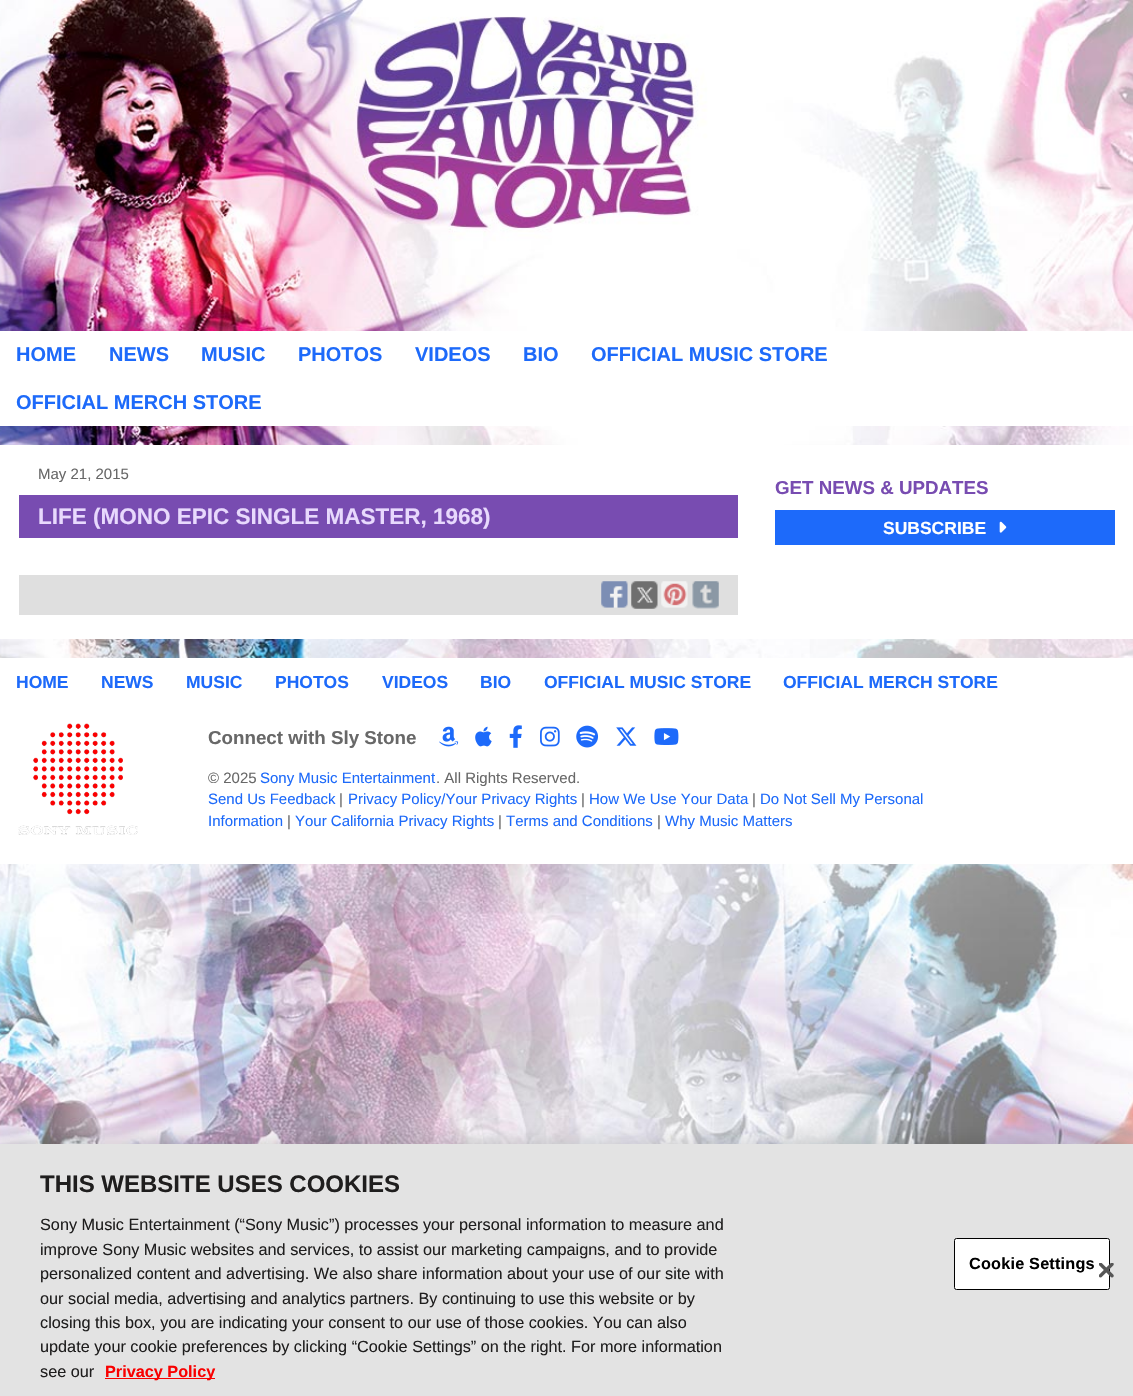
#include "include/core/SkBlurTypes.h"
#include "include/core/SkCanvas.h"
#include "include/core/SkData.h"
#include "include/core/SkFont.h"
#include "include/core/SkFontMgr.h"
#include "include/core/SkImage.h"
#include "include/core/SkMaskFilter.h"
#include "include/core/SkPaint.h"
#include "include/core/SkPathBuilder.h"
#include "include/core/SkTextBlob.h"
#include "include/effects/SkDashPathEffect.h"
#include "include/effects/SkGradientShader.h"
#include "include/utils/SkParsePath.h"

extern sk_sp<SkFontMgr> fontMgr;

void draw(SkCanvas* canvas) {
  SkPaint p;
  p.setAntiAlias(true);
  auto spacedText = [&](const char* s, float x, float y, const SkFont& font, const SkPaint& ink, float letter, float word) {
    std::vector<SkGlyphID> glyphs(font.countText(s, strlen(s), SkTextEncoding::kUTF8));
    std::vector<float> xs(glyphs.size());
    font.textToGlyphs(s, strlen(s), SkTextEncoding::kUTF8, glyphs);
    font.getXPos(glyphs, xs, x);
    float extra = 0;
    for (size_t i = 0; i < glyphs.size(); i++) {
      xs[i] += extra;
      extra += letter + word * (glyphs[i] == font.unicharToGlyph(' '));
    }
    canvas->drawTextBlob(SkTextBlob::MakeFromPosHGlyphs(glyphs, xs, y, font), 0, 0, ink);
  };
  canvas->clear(SK_ColorWHITE);
  canvas->drawImageRect(SkImages::DeferredFromEncodedData(SkData::MakeFromFileName("images/1.png")), SkRect::MakeLTRB(0, 0, 1133, 1144), SkSamplingOptions());
  p.setColor(SK_ColorWHITE);
  canvas->drawRect(SkRect::MakeLTRB(0, 331, 1133, 426), p);
  canvas->drawRect(SkRect::MakeLTRB(0, 445, 1133, 639), p);
  p.setColor(SkColorSetRGB(120, 76, 177));
  canvas->drawRect(SkRect::MakeLTRB(19, 495, 738, 538), p);
  p.setColor(SkColorSetRGB(223, 223, 223));
  canvas->drawRect(SkRect::MakeLTRB(19, 575, 738, 615), p);
  canvas->drawImageRect(SkImages::DeferredFromEncodedData(SkData::MakeFromFileName("images/2.png")), SkRect::MakeLTRB(601, 581, 628, 608), SkSamplingOptions());
  canvas->drawImageRect(SkImages::DeferredFromEncodedData(SkData::MakeFromFileName("images/3.png")), SkRect::MakeLTRB(631, 581, 658, 609), SkSamplingOptions());
  canvas->drawImageRect(SkImages::DeferredFromEncodedData(SkData::MakeFromFileName("images/4.png")), SkRect::MakeLTRB(661, 581, 688, 608), SkSamplingOptions());
  canvas->drawImageRect(SkImages::DeferredFromEncodedData(SkData::MakeFromFileName("images/5.png")), SkRect::MakeLTRB(692, 581, 719, 609), SkSamplingOptions());
  p.setColor(SkColorSetRGB(29, 106, 250));
  canvas->drawRect(SkRect::MakeLTRB(775, 510, 1115, 545), p);
  canvas->drawImageRect(SkImages::DeferredFromEncodedData(SkData::MakeFromFileName("images/6.png")), SkRect::MakeLTRB(999, 521, 1007, 533), SkSamplingOptions());
  p.setColor(SK_ColorWHITE);
  canvas->drawRect(SkRect::MakeLTRB(0, 658, 1133, 864), p);
  canvas->drawImageRect(SkImages::DeferredFromEncodedData(SkData::MakeFromFileName("images/7.png")), SkRect::MakeLTRB(18, 723, 138, 835), SkSamplingOptions());
  canvas->drawImageRect(SkImages::DeferredFromEncodedData(SkData::MakeFromFileName("images/8.png")), SkRect::MakeLTRB(439, 726, 459, 747), SkSamplingOptions());
  canvas->drawImageRect(SkImages::DeferredFromEncodedData(SkData::MakeFromFileName("images/9.png")), SkRect::MakeLTRB(475, 726, 492, 747), SkSamplingOptions());
  canvas->drawImageRect(SkImages::DeferredFromEncodedData(SkData::MakeFromFileName("images/10.png")), SkRect::MakeLTRB(509, 725, 522, 748), SkSamplingOptions());
  canvas->drawImageRect(SkImages::DeferredFromEncodedData(SkData::MakeFromFileName("images/11.png")), SkRect::MakeLTRB(540, 726, 560, 747), SkSamplingOptions());
  canvas->drawImageRect(SkImages::DeferredFromEncodedData(SkData::MakeFromFileName("images/12.png")), SkRect::MakeLTRB(576, 725, 599, 748), SkSamplingOptions());
  canvas->drawImageRect(SkImages::DeferredFromEncodedData(SkData::MakeFromFileName("images/13.png")), SkRect::MakeLTRB(616, 727, 637, 746), SkSamplingOptions());
  canvas->drawImageRect(SkImages::DeferredFromEncodedData(SkData::MakeFromFileName("images/14.png")), SkRect::MakeLTRB(654, 728, 679, 745), SkSamplingOptions());
  p.setColor(SkColorSetARGB(51, 0, 0, 0));
  p.setMaskFilter(SkMaskFilter::MakeBlur(kNormal_SkBlurStyle, 11));
  canvas->drawRect(SkRect::MakeLTRB(0, 1144, 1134, 1396), p);
  p.setMaskFilter(nullptr);
  p.setColor(SkColorSetRGB(227, 227, 227));
  canvas->drawRect(SkRect::MakeLTRB(0, 1144, 1133, 1396), p);
  p.setColor(SkColorSetRGB(249, 0, 0));
  canvas->drawRect(SkRect::MakeLTRB(105, 1378, 215, 1379), p);
  p.setColor(SK_ColorWHITE);
  canvas->drawRoundRect(SkRect::MakeLTRB(954.5f, 1238.5f, 1109.5f, 1289.5f), 2, 2, p);
  p.setStyle(SkPaint::kStroke_Style);
  p.setStrokeWidth(1);
  p.setColor(SK_ColorBLACK);
  canvas->drawRoundRect(SkRect::MakeLTRB(954.5f, 1238.5f, 1109.5f, 1289.5f), 2, 2, p);
  canvas->drawImageRect(SkImages::DeferredFromEncodedData(SkData::MakeFromFileName("images/15.png")), SkRect::MakeLTRB(1099, 1263, 1114, 1278), SkSamplingOptions());
  SkFont font1(fontMgr->matchFamilyStyle("Liberation Sans", SkFontStyle::Bold()), 20);
  font1.setSubpixel(true);
  p.setStyle(SkPaint::kFill_Style);
  p.setColor(SkColorSetRGB(29, 106, 250));
  canvas->drawString("HOME", 16, 361, font1, p);
  canvas->drawString("NEWS", 109, 361, font1, p);
  canvas->drawString("MUSIC", 201, 361, font1, p);
  canvas->drawString("PHOTOS", 298, 361, font1, p);
  canvas->drawString("VIDEOS", 415, 361, font1, p);
  canvas->drawString("BIO", 523, 361, font1, p);
  canvas->drawString("OFFICIAL MUSIC STORE", 591, 361, font1, p);
  canvas->drawString("OFFICIAL MERCH STORE", 16, 409, font1, p);
  SkFont font2(fontMgr->matchFamilyStyle("Liberation Sans", SkFontStyle::Normal()), 15);
  font2.setSubpixel(true);
  p.setColor(SkColorSetRGB(104, 104, 104));
  canvas->drawString("May 21, 2015", 38, 479, font2, p);
  SkFont font3(fontMgr->matchFamilyStyle("Liberation Sans", SkFontStyle::Bold()), 22.5f);
  font3.setSubpixel(true);
  p.setColor(SkColorSetRGB(232, 217, 253));
  canvas->drawString("LIFE (MONO EPIC SINGLE MASTER, 1968)", 38, 524, font3, p);
  SkFont font4(fontMgr->matchFamilyStyle("Liberation Sans", SkFontStyle::Bold()), 18.75f);
  font4.setSubpixel(true);
  p.setColor(SkColorSetRGB(120, 76, 177));
  canvas->drawString("GET NEWS & UPDATES", 775, 494, font4, p);
  SkFont font5(fontMgr->matchFamilyStyle("Liberation Sans", SkFontStyle::Bold()), 17.5f);
  font5.setSubpixel(true);
  p.setColor(SK_ColorWHITE);
  canvas->drawString("SUBSCRIBE", 883, 534, font5, p);
  p.setColor(SkColorSetRGB(29, 106, 250));
  canvas->drawString("HOME", 16, 688, font5, p);
  canvas->drawString("NEWS", 101, 688, font5, p);
  canvas->drawString("MUSIC", 186, 688, font5, p);
  canvas->drawString("PHOTOS", 275, 688, font5, p);
  canvas->drawString("VIDEOS", 382, 688, font5, p);
  canvas->drawString("BIO", 480, 688, font5, p);
  canvas->drawString("OFFICIAL MUSIC STORE", 544, 688, font5, p);
  canvas->drawString("OFFICIAL MERCH STORE", 783, 688, font5, p);
  p.setColor(SkColorSetRGB(104, 104, 104));
  canvas->drawString("Connect with Sly Stone", 208, 744, font4, p);
  canvas->drawString("© 2025", 208, 783, font2, p);
  p.setColor(SkColorSetRGB(29, 106, 250));
  canvas->drawString("Sony Music Entertainment", 260, 783, font2, p);
  p.setColor(SkColorSetRGB(104, 104, 104));
  canvas->drawString(". All Rights Reserved.", 436, 783, font2, p);
  p.setColor(SkColorSetRGB(29, 106, 250));
  canvas->drawString("Send Us Feedback", 208, 804, font2, p);
  p.setColor(SkColorSetRGB(104, 104, 104));
  canvas->drawString("|", 339, 804, font2, p);
  p.setColor(SkColorSetRGB(29, 106, 250));
  canvas->drawString("Privacy Policy/Your Privacy Rights", 348, 804, font2, p);
  p.setColor(SkColorSetRGB(104, 104, 104));
  canvas->drawString("|", 581, 804, font2, p);
  p.setColor(SkColorSetRGB(29, 106, 250));
  canvas->drawString("How We Use Your Data", 589, 804, font2, p);
  p.setColor(SkColorSetRGB(104, 104, 104));
  canvas->drawString("|", 752, 804, font2, p);
  p.setColor(SkColorSetRGB(29, 106, 250));
  canvas->drawString("Do Not Sell My Personal", 760, 804, font2, p);
  canvas->drawString("Information", 208, 826, font2, p);
  p.setColor(SkColorSetRGB(104, 104, 104));
  canvas->drawString("|", 287, 826, font2, p);
  p.setColor(SkColorSetRGB(29, 106, 250));
  canvas->drawString("Your California Privacy Rights", 295, 826, font2, p);
  p.setColor(SkColorSetRGB(104, 104, 104));
  canvas->drawString("|", 498, 826, font2, p);
  p.setColor(SkColorSetRGB(29, 106, 250));
  canvas->drawString("Terms and Conditions", 506, 826, font2, p);
  p.setColor(SkColorSetRGB(104, 104, 104));
  canvas->drawString("|", 657, 826, font2, p);
  p.setColor(SkColorSetRGB(29, 106, 250));
  canvas->drawString("Why Music Matters", 665, 826, font2, p);
  SkFont font6(fontMgr->matchFamilyStyle("Liberation Sans", SkFontStyle::Bold()), 24);
  font6.setSubpixel(true);
  p.setColor(SkColorSetRGB(31, 30, 30));
  canvas->drawString("THIS WEBSITE USES COOKIES", 40, 1192, font6, p);
  SkFont font7(fontMgr->matchFamilyStyle("Liberation Sans", SkFontStyle::Normal()), 16.25f);
  font7.setSubpixel(true);
  canvas->drawString("Sony Music Entertainment (“Sony Music”) processes your personal information to measure and", 40, 1230, font7, p);
  canvas->drawString("improve Sony Music websites and services, to assist our marketing campaigns, and to provide", 40, 1255, font7, p);
  canvas->drawString("personalized content and advertising. We also share information about your use of our site with", 40, 1279, font7, p);
  canvas->drawString("our social media, advertising and analytics partners. By continuing to use this website or by", 40, 1304, font7, p);
  canvas->drawString("closing this box, you are indicating your consent to our use of those cookies. You can also", 40, 1328, font7, p);
  canvas->drawString("update your cookie preferences by clicking “Cookie Settings” on the right. For more information", 40, 1352, font7, p);
  canvas->drawString("see our", 40, 1377, font7, p);
  SkFont font8(fontMgr->matchFamilyStyle("Liberation Sans", SkFontStyle::Bold()), 16.25f);
  font8.setSubpixel(true);
  p.setColor(SkColorSetRGB(249, 0, 0));
  canvas->drawString("Privacy Policy", 105, 1377, font8, p);
  p.setColor(SK_ColorBLACK);
  spacedText("Cookie Settings", 969, 1269, font8, p, 0.2f, 0);
}
